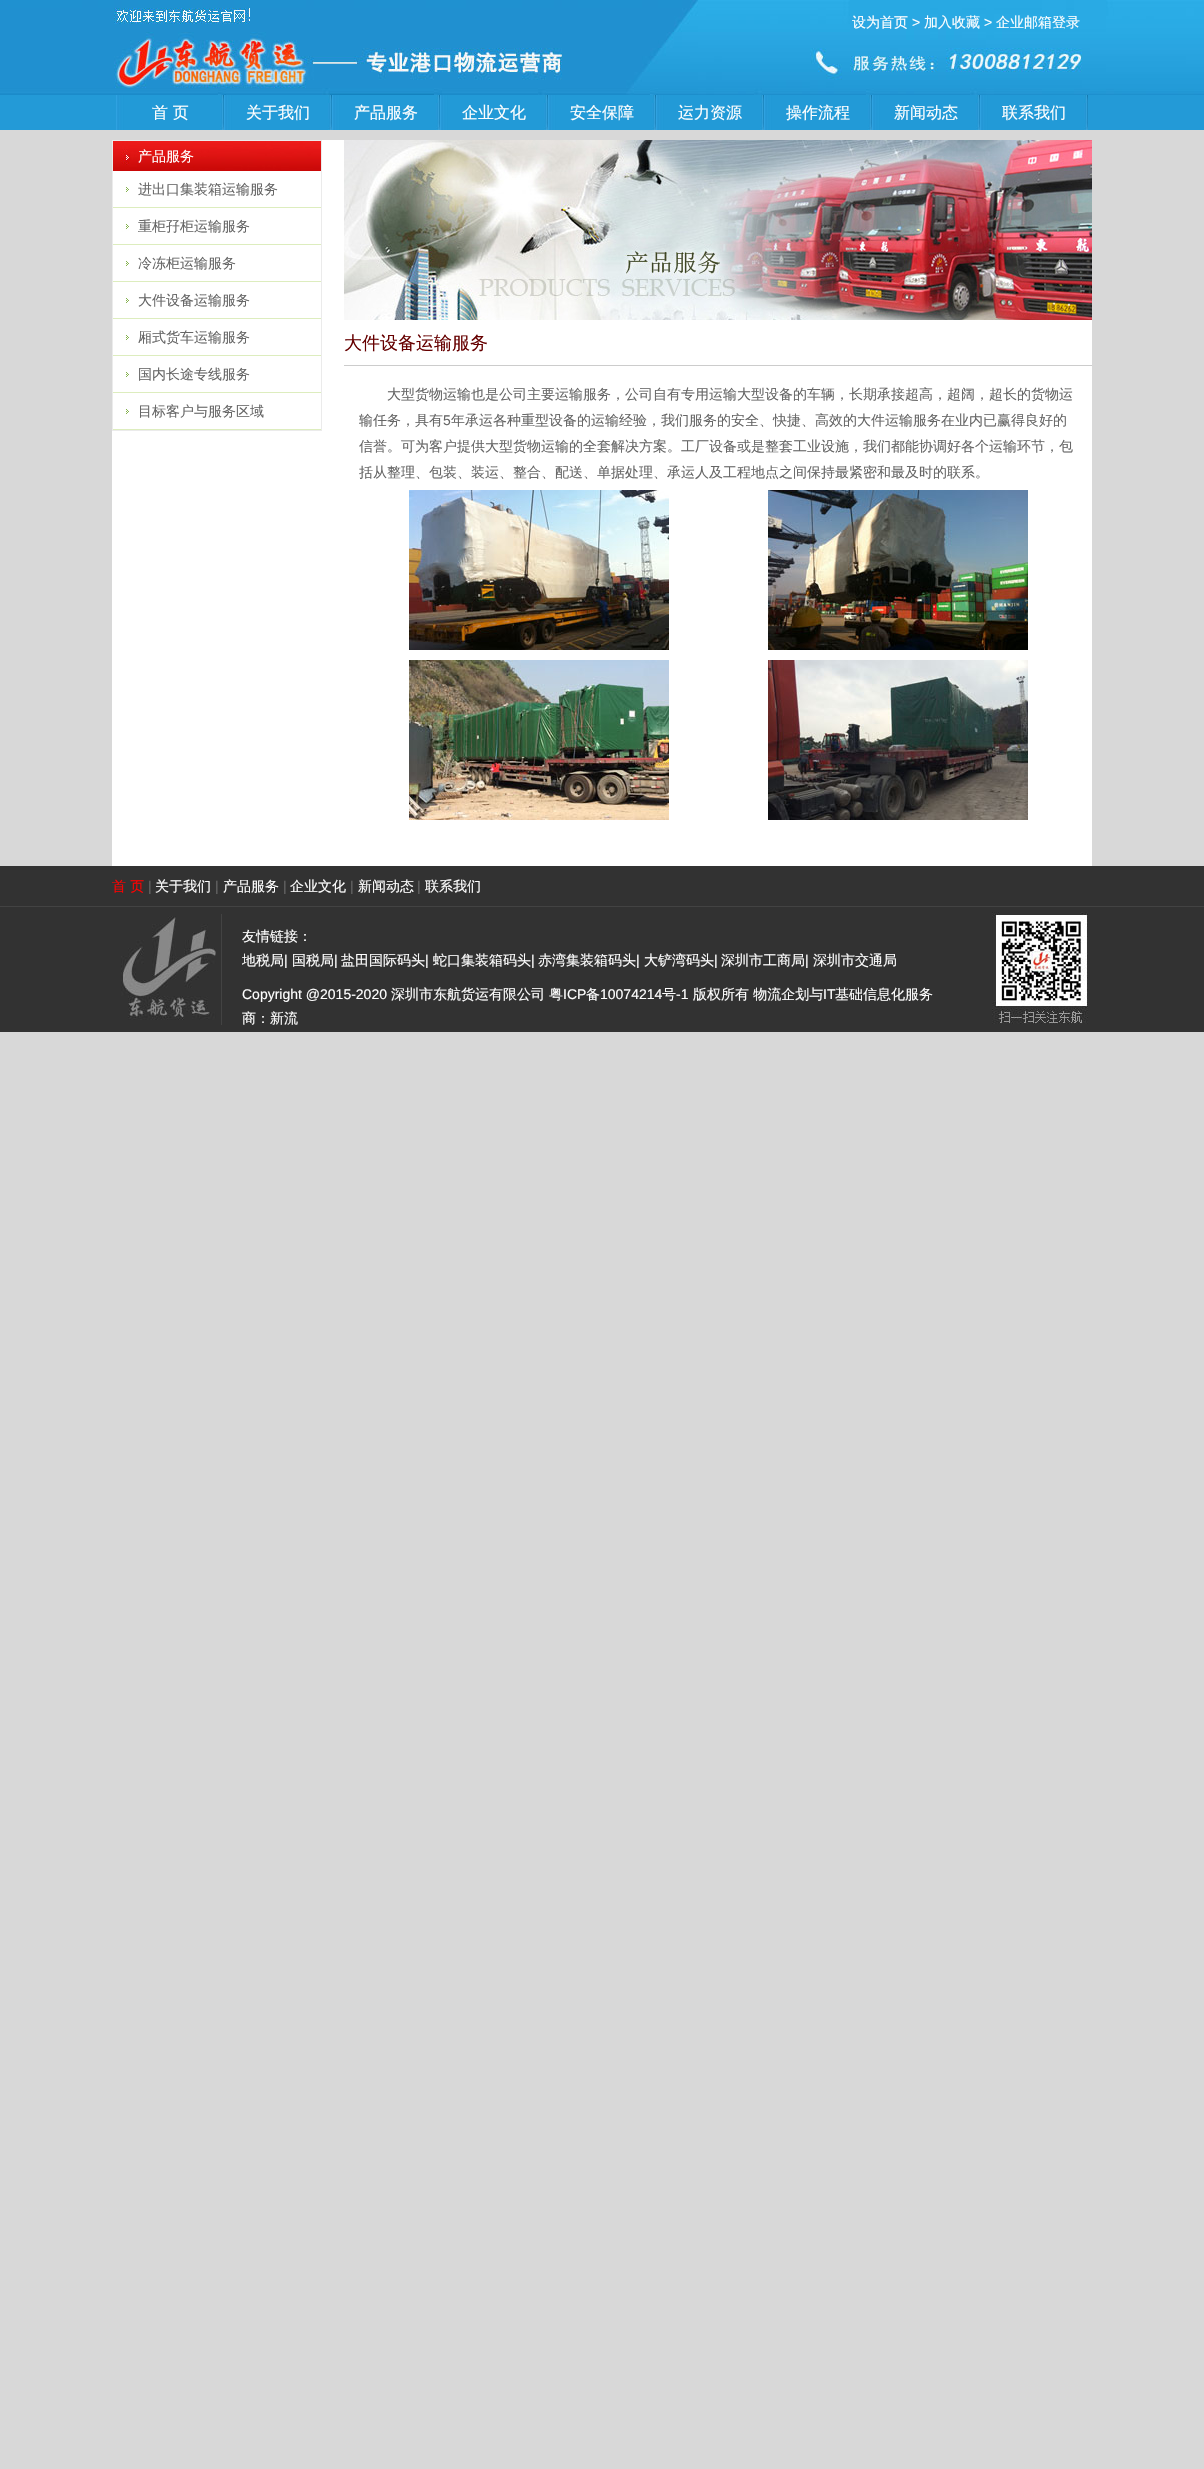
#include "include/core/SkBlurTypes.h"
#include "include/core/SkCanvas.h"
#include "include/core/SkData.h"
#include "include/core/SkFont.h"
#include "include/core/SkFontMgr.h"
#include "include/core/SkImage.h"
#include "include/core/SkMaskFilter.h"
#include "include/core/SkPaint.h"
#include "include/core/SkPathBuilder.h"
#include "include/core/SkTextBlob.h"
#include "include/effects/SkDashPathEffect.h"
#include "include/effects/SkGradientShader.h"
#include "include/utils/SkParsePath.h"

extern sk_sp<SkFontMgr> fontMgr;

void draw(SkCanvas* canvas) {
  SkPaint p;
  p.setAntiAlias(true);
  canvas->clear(SkColorSetRGB(216, 216, 216));
  canvas->drawImageRect(SkImages::DeferredFromEncodedData(SkData::MakeFromFileName("images/1.png")), SkRect::MakeLTRB(0, 0, 1204, 95), SkSamplingOptions());
  p.setColor(SkColorSetRGB(35, 154, 215));
  canvas->drawRect(SkRect::MakeLTRB(0, 95, 1204, 130), p);
  canvas->drawImageRect(SkImages::DeferredFromEncodedData(SkData::MakeFromFileName("images/2.png")), SkRect::MakeLTRB(116, 95, 224, 130), SkSamplingOptions());
  canvas->drawImageRect(SkImages::DeferredFromEncodedData(SkData::MakeFromFileName("images/2.png")), SkRect::MakeLTRB(224, 95, 332, 130), SkSamplingOptions());
  canvas->drawImageRect(SkImages::DeferredFromEncodedData(SkData::MakeFromFileName("images/2.png")), SkRect::MakeLTRB(332, 95, 440, 130), SkSamplingOptions());
  canvas->drawImageRect(SkImages::DeferredFromEncodedData(SkData::MakeFromFileName("images/2.png")), SkRect::MakeLTRB(440, 95, 548, 130), SkSamplingOptions());
  canvas->drawImageRect(SkImages::DeferredFromEncodedData(SkData::MakeFromFileName("images/2.png")), SkRect::MakeLTRB(548, 95, 656, 130), SkSamplingOptions());
  canvas->drawImageRect(SkImages::DeferredFromEncodedData(SkData::MakeFromFileName("images/2.png")), SkRect::MakeLTRB(656, 95, 764, 130), SkSamplingOptions());
  canvas->drawImageRect(SkImages::DeferredFromEncodedData(SkData::MakeFromFileName("images/2.png")), SkRect::MakeLTRB(764, 95, 872, 130), SkSamplingOptions());
  canvas->drawImageRect(SkImages::DeferredFromEncodedData(SkData::MakeFromFileName("images/2.png")), SkRect::MakeLTRB(872, 95, 980, 130), SkSamplingOptions());
  canvas->drawImageRect(SkImages::DeferredFromEncodedData(SkData::MakeFromFileName("images/2.png")), SkRect::MakeLTRB(980, 95, 1088, 130), SkSamplingOptions());
  p.setColor(SK_ColorWHITE);
  canvas->drawRect(SkRect::MakeLTRB(112, 140, 1092, 866), p);
  p.setStyle(SkPaint::kStroke_Style);
  p.setStrokeWidth(1);
  p.setColor(SkColorSetRGB(235, 235, 235));
  canvas->drawRect(SkRect::MakeLTRB(112.5f, 140.5f, 321.5f, 430.5f), p);
  canvas->drawImageRect(SkImages::DeferredFromEncodedData(SkData::MakeFromFileName("images/3.png")), SkRect::MakeLTRB(113, 141, 321, 171), SkSamplingOptions());
  canvas->drawImageRect(SkImages::DeferredFromEncodedData(SkData::MakeFromFileName("images/4.png")), SkRect::MakeLTRB(113, 187, 321, 208), SkSamplingOptions());
  canvas->drawImageRect(SkImages::DeferredFromEncodedData(SkData::MakeFromFileName("images/4.png")), SkRect::MakeLTRB(113, 224, 321, 245), SkSamplingOptions());
  canvas->drawImageRect(SkImages::DeferredFromEncodedData(SkData::MakeFromFileName("images/4.png")), SkRect::MakeLTRB(113, 261, 321, 282), SkSamplingOptions());
  canvas->drawImageRect(SkImages::DeferredFromEncodedData(SkData::MakeFromFileName("images/4.png")), SkRect::MakeLTRB(113, 298, 321, 319), SkSamplingOptions());
  canvas->drawImageRect(SkImages::DeferredFromEncodedData(SkData::MakeFromFileName("images/4.png")), SkRect::MakeLTRB(113, 335, 321, 356), SkSamplingOptions());
  canvas->drawImageRect(SkImages::DeferredFromEncodedData(SkData::MakeFromFileName("images/4.png")), SkRect::MakeLTRB(113, 372, 321, 393), SkSamplingOptions());
  canvas->drawImageRect(SkImages::DeferredFromEncodedData(SkData::MakeFromFileName("images/4.png")), SkRect::MakeLTRB(113, 409, 321, 430), SkSamplingOptions());
  canvas->drawImageRect(SkImages::DeferredFromEncodedData(SkData::MakeFromFileName("images/5.png")), SkRect::MakeLTRB(344, 140, 1092, 320), SkSamplingOptions());
  p.setStyle(SkPaint::kFill_Style);
  p.setColor(SkColorSetRGB(204, 204, 204));
  canvas->drawRect(SkRect::MakeLTRB(344, 365, 1092, 366), p);
  canvas->drawImageRect(SkImages::DeferredFromEncodedData(SkData::MakeFromFileName("images/6.png")), SkRect::MakeLTRB(409, 490, 669, 650), SkSamplingOptions());
  canvas->drawImageRect(SkImages::DeferredFromEncodedData(SkData::MakeFromFileName("images/7.png")), SkRect::MakeLTRB(768, 490, 1028, 650), SkSamplingOptions());
  canvas->drawImageRect(SkImages::DeferredFromEncodedData(SkData::MakeFromFileName("images/8.png")), SkRect::MakeLTRB(409, 660, 669, 820), SkSamplingOptions());
  canvas->drawImageRect(SkImages::DeferredFromEncodedData(SkData::MakeFromFileName("images/9.png")), SkRect::MakeLTRB(768, 660, 1028, 820), SkSamplingOptions());
  p.setColor(SkColorSetRGB(50, 50, 50));
  canvas->drawRect(SkRect::MakeLTRB(0, 866, 1204, 906), p);
  p.setColor(SkColorSetRGB(67, 67, 67));
  canvas->drawRect(SkRect::MakeLTRB(0, 906, 1204, 907), p);
  p.setColor(SkColorSetRGB(50, 50, 50));
  canvas->drawRect(SkRect::MakeLTRB(0, 907, 1204, 1032), p);
  canvas->drawImageRect(SkImages::DeferredFromEncodedData(SkData::MakeFromFileName("images/10.png")), SkRect::MakeLTRB(992, 912, 1088, 1024), SkSamplingOptions());
  canvas->drawImageRect(SkImages::DeferredFromEncodedData(SkData::MakeFromFileName("images/11.png")), SkRect::MakeLTRB(121, 916, 216, 1020), SkSamplingOptions());
  p.setColor(SkColorSetRGB(67, 67, 67));
  canvas->drawRect(SkRect::MakeLTRB(221, 914, 222, 1025), p);
  SkFont font1(fontMgr->matchFamilyStyle("WenQuanYi Zen Hei", SkFontStyle(500, SkFontStyle::kNormal_Width, SkFontStyle::kUpright_Slant)), 14);
  font1.setSubpixel(true);
  p.setColor(SK_ColorWHITE);
  canvas->drawString("设为首页", 852, 27, font1, p);
  SkFont font2(fontMgr->matchFamilyStyle("Liberation Sans", SkFontStyle::Normal()), 14);
  font2.setSubpixel(true);
  canvas->drawString(">", 912, 27, font2, p);
  canvas->drawString("加入收藏", 924, 27, font1, p);
  canvas->drawString(">", 984, 27, font2, p);
  canvas->drawString("企业邮箱登录", 996, 27, font1, p);
  SkFont font3(fontMgr->matchFamilyStyle("WenQuanYi Zen Hei", SkFontStyle(500, SkFontStyle::kNormal_Width, SkFontStyle::kUpright_Slant)), 16);
  font3.setSubpixel(true);
  canvas->drawString("首 页", 152, 118, font3, p);
  canvas->drawString("关于我们", 246, 118, font3, p);
  canvas->drawString("产品服务", 354, 118, font3, p);
  canvas->drawString("企业文化", 462, 118, font3, p);
  canvas->drawString("安全保障", 570, 118, font3, p);
  canvas->drawString("运力资源", 678, 118, font3, p);
  canvas->drawString("操作流程", 786, 118, font3, p);
  canvas->drawString("新闻动态", 894, 118, font3, p);
  canvas->drawString("联系我们", 1002, 118, font3, p);
  canvas->drawString("产品服务", 138, 161, font1, p);
  p.setColor(SkColorSetRGB(102, 102, 102));
  canvas->drawString("进出口集装箱运输服务", 138, 194, font1, p);
  canvas->drawString("重柜孖柜运输服务", 138, 231, font1, p);
  canvas->drawString("冷冻柜运输服务", 138, 268, font1, p);
  canvas->drawString("大件设备运输服务", 138, 305, font1, p);
  canvas->drawString("厢式货车运输服务", 138, 342, font1, p);
  canvas->drawString("国内长途专线服务", 138, 379, font1, p);
  canvas->drawString("目标客户与服务区域", 138, 416, font1, p);
  SkFont font4(fontMgr->matchFamilyStyle("WenQuanYi Zen Hei", SkFontStyle(500, SkFontStyle::kNormal_Width, SkFontStyle::kUpright_Slant)), 18);
  font4.setSubpixel(true);
  p.setColor(SkColorSetRGB(102, 0, 0));
  canvas->drawString("大件设备运输服务", 344, 349, font4, p);
  p.setColor(SkColorSetRGB(102, 102, 102));
  canvas->drawString("大型货物运输也是公司主要运输服务，公司自有专用运输大型设备的车辆，长期承接超高，超阔，超长的货物运", 387, 399, font1, p);
  canvas->drawString("输任务，具有", 359, 425, font1, p);
  canvas->drawString("5", 443, 425, font2, p);
  canvas->drawString("年承运各种重型设备的运输经验，我们服务的安全、快捷、高效的大件运输服务在业内已赢得良好的", 451, 425, font1, p);
  canvas->drawString("信誉。可为客户提供大型货物运输的全套解决方案。工厂设备或是整套工业设施，我们都能协调好各个运输环节，包", 359, 451, font1, p);
  canvas->drawString("括从整理、包装、装运、整合、配送、单据处理、承运人及工程地点之间保持最紧密和最及时的联系。", 359, 477, font1, p);
  p.setColor(SkColorSetRGB(255, 0, 0));
  canvas->drawString("首 页", 112, 891, font1, p);
  p.setColor(SkColorSetRGB(102, 102, 102));
  canvas->drawString("|", 148, 891, font2, p);
  p.setColor(SK_ColorWHITE);
  canvas->drawString("关于我们", 155, 891, font1, p);
  p.setColor(SkColorSetRGB(102, 102, 102));
  canvas->drawString("|", 215, 891, font2, p);
  p.setColor(SK_ColorWHITE);
  canvas->drawString("产品服务", 223, 891, font1, p);
  p.setColor(SkColorSetRGB(102, 102, 102));
  canvas->drawString("|", 283, 891, font2, p);
  p.setColor(SK_ColorWHITE);
  canvas->drawString("企业文化", 290, 891, font1, p);
  p.setColor(SkColorSetRGB(102, 102, 102));
  canvas->drawString("|", 350, 891, font2, p);
  p.setColor(SK_ColorWHITE);
  canvas->drawString("新闻动态", 358, 891, font1, p);
  p.setColor(SkColorSetRGB(102, 102, 102));
  canvas->drawString("|", 417, 891, font2, p);
  p.setColor(SK_ColorWHITE);
  canvas->drawString("联系我们", 425, 891, font1, p);
  canvas->drawString("友情链接：", 242, 941, font1, p);
  canvas->drawString("地税局", 242, 965, font1, p);
  canvas->drawString("|", 284, 965, font2, p);
  canvas->drawString("国税局", 292, 965, font1, p);
  canvas->drawString("|", 334, 965, font2, p);
  canvas->drawString("盐田国际码头", 341, 965, font1, p);
  canvas->drawString("|", 425, 965, font2, p);
  canvas->drawString("蛇口集装箱码头", 433, 965, font1, p);
  canvas->drawString("|", 531, 965, font2, p);
  canvas->drawString("赤湾集装箱码头", 538, 965, font1, p);
  canvas->drawString("|", 636, 965, font2, p);
  canvas->drawString("大铲湾码头", 644, 965, font1, p);
  canvas->drawString("|", 714, 965, font2, p);
  canvas->drawString("深圳市工商局", 721, 965, font1, p);
  canvas->drawString("|", 805, 965, font2, p);
  canvas->drawString("深圳市交通局", 813, 965, font1, p);
  canvas->drawString("Copyright @2015-2020", 242, 999, font2, p);
  canvas->drawString("深圳市东航货运有限公司", 391, 999, font1, p);
  canvas->drawString("粤", 549, 999, font1, p);
  canvas->drawString("ICP", 563, 999, font2, p);
  canvas->drawString("备", 586, 999, font1, p);
  canvas->drawString("10074214", 600, 999, font2, p);
  canvas->drawString("号", 662, 999, font1, p);
  canvas->drawString("-1", 676, 999, font2, p);
  canvas->drawString("版权所有 物流企划与", 693, 999, font1, p);
  canvas->drawString("IT", 823, 999, font2, p);
  canvas->drawString("基础信息化服务", 835, 999, font1, p);
  canvas->drawString("商：新流", 242, 1023, font1, p);
}
